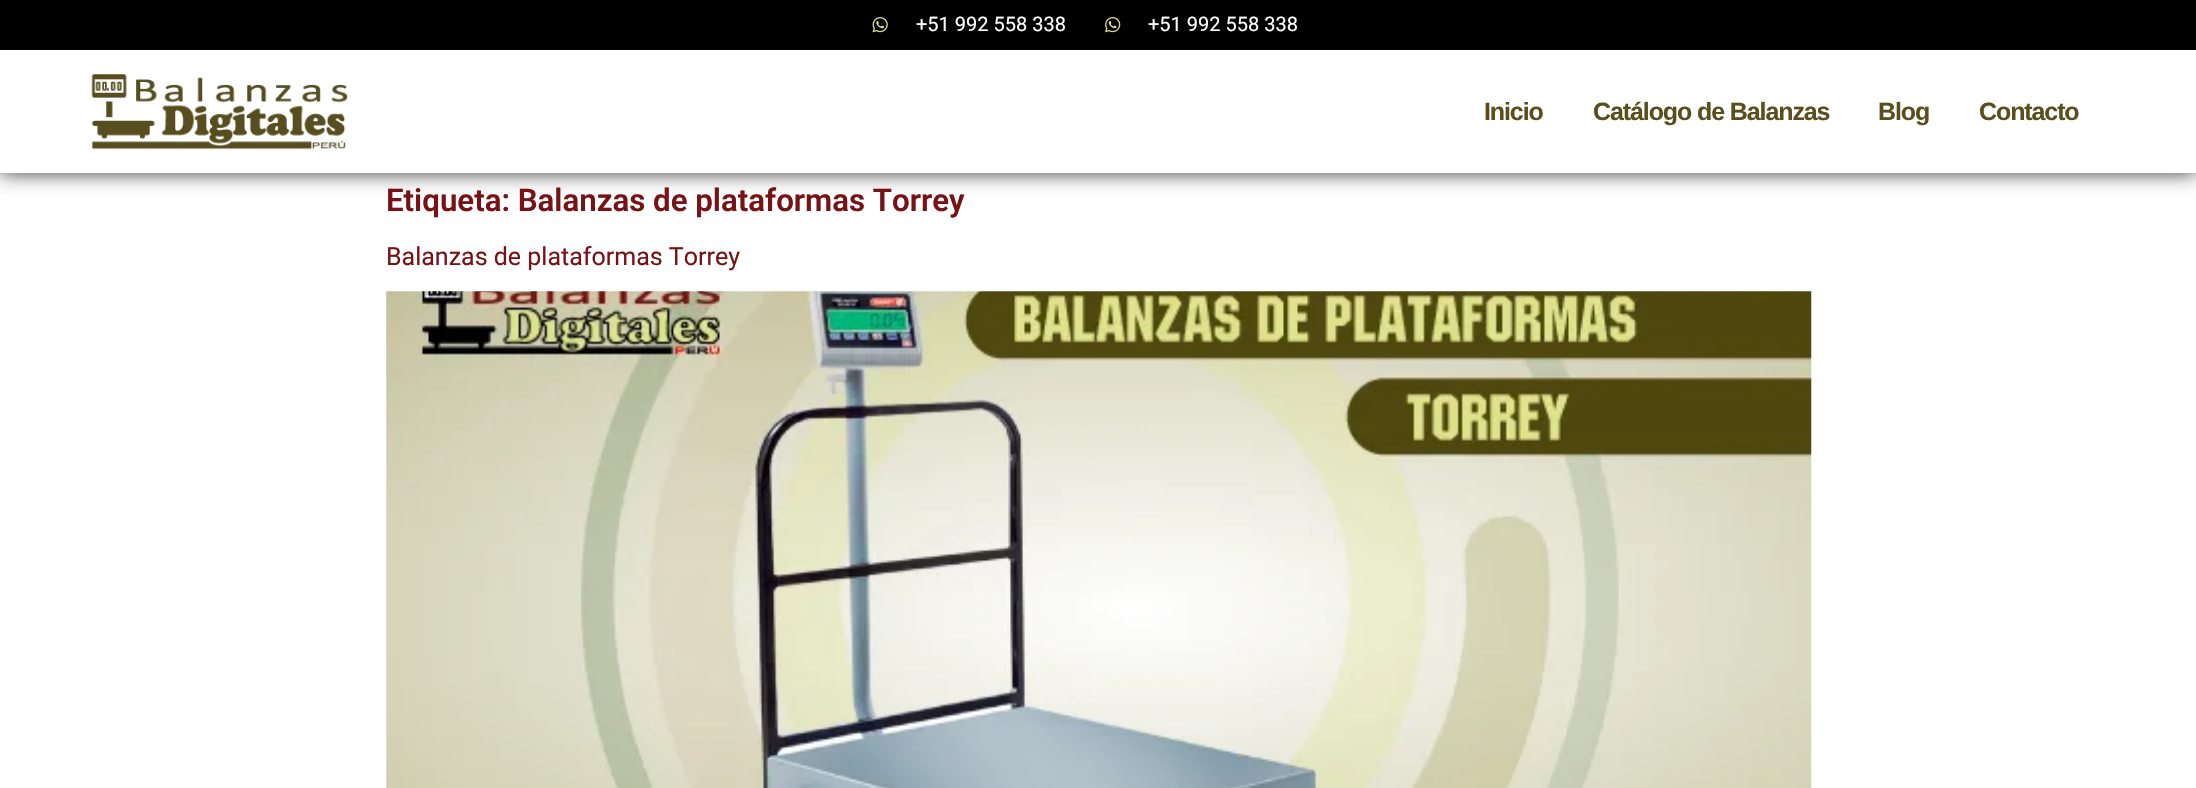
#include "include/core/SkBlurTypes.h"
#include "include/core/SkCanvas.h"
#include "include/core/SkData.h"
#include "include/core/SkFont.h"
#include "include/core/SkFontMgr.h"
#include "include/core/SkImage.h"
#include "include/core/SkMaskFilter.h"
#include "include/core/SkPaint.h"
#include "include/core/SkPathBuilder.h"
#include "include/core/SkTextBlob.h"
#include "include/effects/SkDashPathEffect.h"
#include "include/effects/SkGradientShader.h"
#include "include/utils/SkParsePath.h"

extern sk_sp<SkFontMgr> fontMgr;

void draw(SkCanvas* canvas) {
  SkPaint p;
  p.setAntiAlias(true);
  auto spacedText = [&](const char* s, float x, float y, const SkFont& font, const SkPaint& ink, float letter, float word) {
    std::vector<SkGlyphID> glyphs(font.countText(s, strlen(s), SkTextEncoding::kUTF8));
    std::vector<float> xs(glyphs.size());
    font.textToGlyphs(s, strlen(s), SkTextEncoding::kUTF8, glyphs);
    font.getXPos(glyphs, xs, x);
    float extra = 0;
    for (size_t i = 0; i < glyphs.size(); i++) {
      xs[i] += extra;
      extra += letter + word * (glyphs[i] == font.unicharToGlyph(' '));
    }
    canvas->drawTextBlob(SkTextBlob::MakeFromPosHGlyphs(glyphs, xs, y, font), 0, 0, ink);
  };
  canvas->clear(SK_ColorWHITE);
  p.setColor(SK_ColorBLACK);
  canvas->drawRect(SkRect::MakeLTRB(0, 0, 2196, 50), p);
  canvas->drawImageRect(SkImages::DeferredFromEncodedData(SkData::MakeFromFileName("images/1.png")), SkRect::MakeLTRB(872, 17, 888, 33), SkSamplingOptions());
  canvas->drawImageRect(SkImages::DeferredFromEncodedData(SkData::MakeFromFileName("images/2.png")), SkRect::MakeLTRB(1105, 17, 1121, 33), SkSamplingOptions());
  p.setColor(SkColorSetARGB(201, 0, 0, 0));
  p.setMaskFilter(SkMaskFilter::MakeBlur(kNormal_SkBlurStyle, 9.5f));
  canvas->drawRect(SkRect::MakeLTRB(0, 50, 2196, 173), p);
  p.setMaskFilter(nullptr);
  p.setColor(SK_ColorWHITE);
  canvas->drawRect(SkRect::MakeLTRB(0, 50, 2196, 173), p);
  canvas->drawImageRect(SkImages::DeferredFromEncodedData(SkData::MakeFromFileName("images/3.png")), SkRect::MakeLTRB(91, 74, 348, 150), SkSamplingOptions());
  canvas->drawImageRect(SkImages::DeferredFromEncodedData(SkData::MakeFromFileName("images/4.png")), SkRect::MakeLTRB(386, 291, 1812, 788), SkSamplingOptions());
  SkFont font1(fontMgr->matchFamilyStyle("Roboto", SkFontStyle::Normal()), 20);
  font1.setSubpixel(true);
  canvas->drawString("+51 992 558 338", 916, 31, font1, p);
  canvas->drawString("+51 992 558 338", 1148, 31, font1, p);
  SkFont font2(fontMgr->matchFamilyStyle("Liberation Sans", SkFontStyle::Bold()), 25);
  font2.setSubpixel(true);
  p.setColor(SkColorSetRGB(90, 78, 28));
  spacedText("Inicio", 1484, 120, font2, p, -1.1f, 0);
  spacedText("Catálogo de Balanzas", 1593, 120, font2, p, -1.1f, 0);
  spacedText("Blog", 1878, 120, font2, p, -1.1f, 0);
  spacedText("Contacto", 1979, 120, font2, p, -1.1f, 0);
  SkFont font3(fontMgr->matchFamilyStyle("Roboto", SkFontStyle(600, SkFontStyle::kNormal_Width, SkFontStyle::kUpright_Slant)), 31.25f);
  font3.setSubpixel(true);
  p.setColor(SkColorSetRGB(120, 18, 20));
  canvas->drawString("Etiqueta: Balanzas de plataformas Torrey", 386, 211, font3, p);
  SkFont font4(fontMgr->matchFamilyStyle("Roboto", SkFontStyle::Normal()), 25);
  font4.setSubpixel(true);
  canvas->drawString("Balanzas de plataformas Torrey", 386, 265, font4, p);
}
